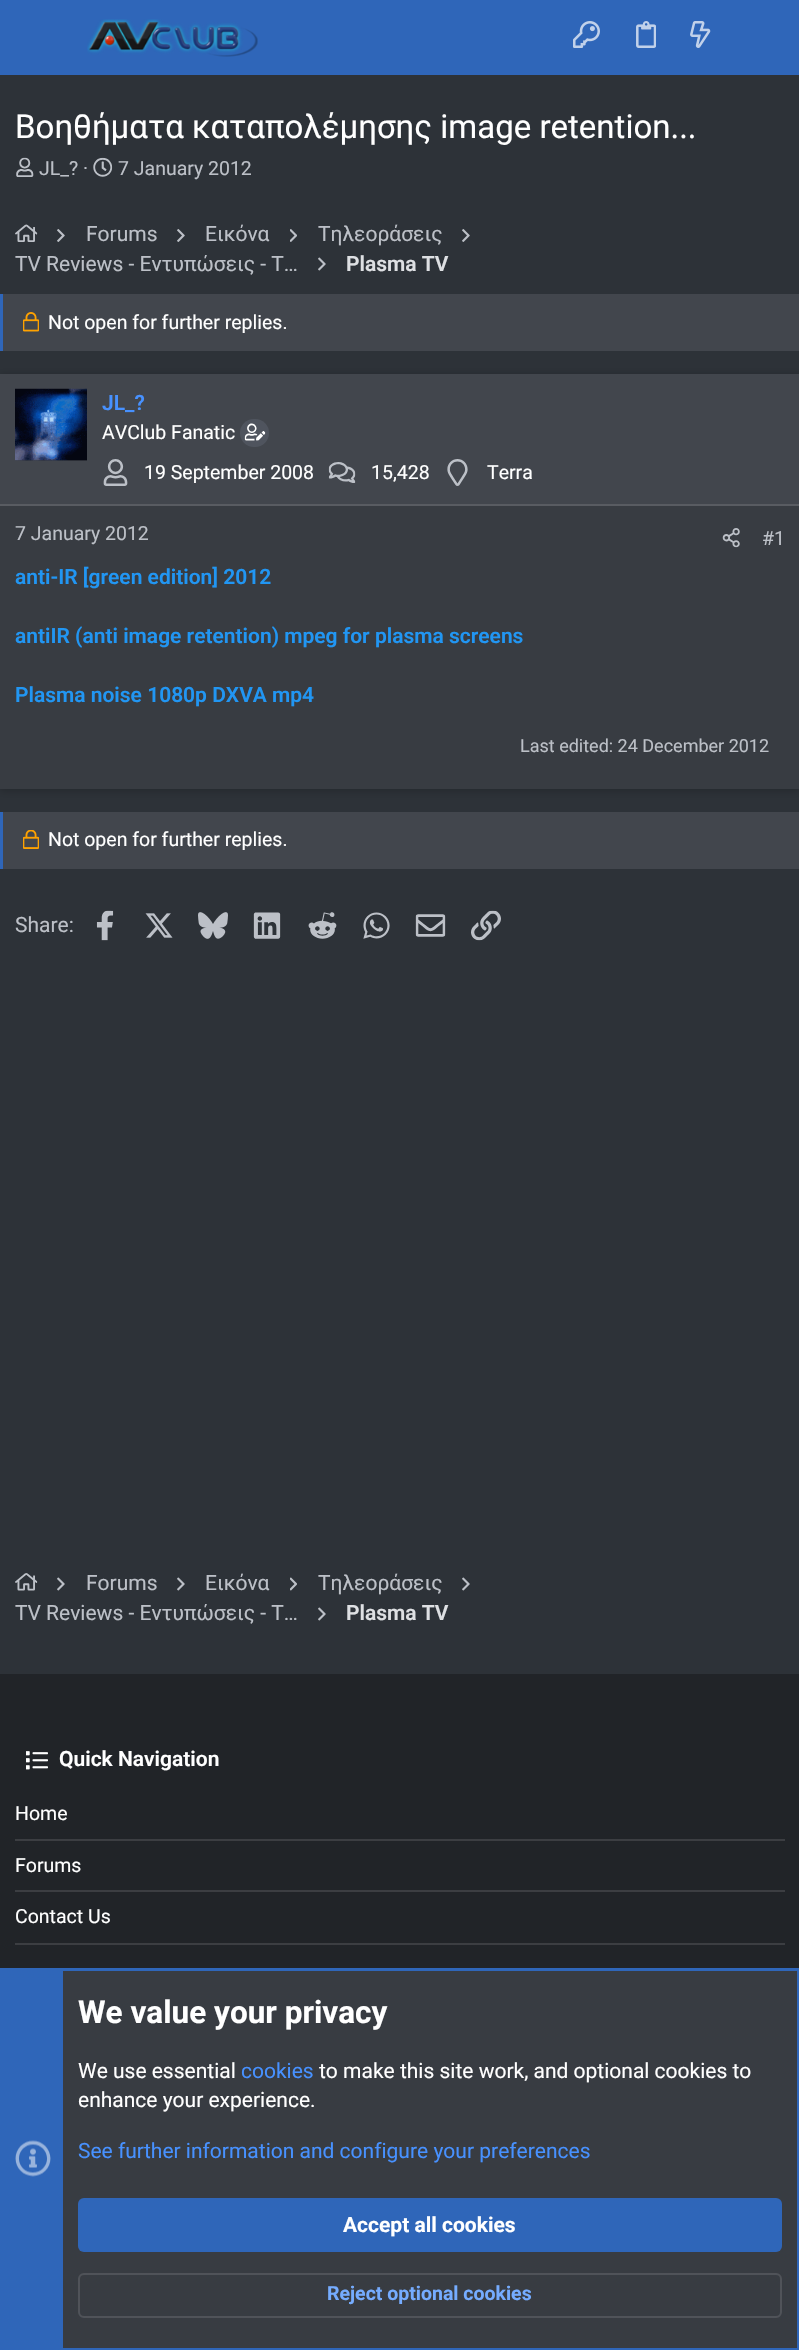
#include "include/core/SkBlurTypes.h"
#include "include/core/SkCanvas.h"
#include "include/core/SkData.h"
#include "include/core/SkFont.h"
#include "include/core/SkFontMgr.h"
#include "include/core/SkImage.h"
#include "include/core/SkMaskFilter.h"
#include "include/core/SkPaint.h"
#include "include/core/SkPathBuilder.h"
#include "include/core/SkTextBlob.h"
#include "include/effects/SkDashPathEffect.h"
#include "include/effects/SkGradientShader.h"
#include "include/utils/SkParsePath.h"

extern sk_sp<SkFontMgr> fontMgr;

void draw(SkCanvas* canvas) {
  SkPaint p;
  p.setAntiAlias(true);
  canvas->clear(SkColorSetRGB(45, 50, 56));
  p.setColor(SkColorSetRGB(47, 102, 185));
  canvas->drawRect(SkRect::MakeLTRB(0, 0, 799, 75), p);
  canvas->drawImageRect(SkImages::DeferredFromEncodedData(SkData::MakeFromFileName("images/1.png")), SkRect::MakeLTRB(87, 19, 258, 57), SkSamplingOptions());
  canvas->drawImageRect(SkImages::DeferredFromEncodedData(SkData::MakeFromFileName("images/2.png")), SkRect::MakeLTRB(573, 21, 600, 48), SkSamplingOptions());
  canvas->drawImageRect(SkImages::DeferredFromEncodedData(SkData::MakeFromFileName("images/3.png")), SkRect::MakeLTRB(636, 21, 656, 48), SkSamplingOptions());
  canvas->drawImageRect(SkImages::DeferredFromEncodedData(SkData::MakeFromFileName("images/4.png")), SkRect::MakeLTRB(690, 21, 711, 48), SkSamplingOptions());
  canvas->drawImageRect(SkImages::DeferredFromEncodedData(SkData::MakeFromFileName("images/5.png")), SkRect::MakeLTRB(16, 157, 34, 177), SkSamplingOptions());
  canvas->drawImageRect(SkImages::DeferredFromEncodedData(SkData::MakeFromFileName("images/6.png")), SkRect::MakeLTRB(93, 157, 113, 177), SkSamplingOptions());
  canvas->drawImageRect(SkImages::DeferredFromEncodedData(SkData::MakeFromFileName("images/7.png")), SkRect::MakeLTRB(15, 224, 38, 242), SkSamplingOptions());
  canvas->drawImageRect(SkImages::DeferredFromEncodedData(SkData::MakeFromFileName("images/8.png")), SkRect::MakeLTRB(57, 229, 65, 242), SkSamplingOptions());
  canvas->drawImageRect(SkImages::DeferredFromEncodedData(SkData::MakeFromFileName("images/8.png")), SkRect::MakeLTRB(177, 229, 185, 242), SkSamplingOptions());
  canvas->drawImageRect(SkImages::DeferredFromEncodedData(SkData::MakeFromFileName("images/9.png")), SkRect::MakeLTRB(290, 229, 297, 242), SkSamplingOptions());
  canvas->drawImageRect(SkImages::DeferredFromEncodedData(SkData::MakeFromFileName("images/8.png")), SkRect::MakeLTRB(462, 229, 470, 242), SkSamplingOptions());
  canvas->drawImageRect(SkImages::DeferredFromEncodedData(SkData::MakeFromFileName("images/10.png")), SkRect::MakeLTRB(318, 257, 326, 271), SkSamplingOptions());
  p.setColor(SkColorSetRGB(66, 70, 77));
  canvas->drawRect(SkRect::MakeLTRB(3, 294, 799, 351), p);
  p.setColor(SkColorSetRGB(47, 102, 185));
  canvas->drawRect(SkRect::MakeLTRB(0, 294, 3, 351), p);
  canvas->drawImageRect(SkImages::DeferredFromEncodedData(SkData::MakeFromFileName("images/11.png")), SkRect::MakeLTRB(23, 312, 39, 332), SkSamplingOptions());
  p.setColor(SkColorSetARGB(51, 0, 0, 0));
  p.setMaskFilter(SkMaskFilter::MakeBlur(kNormal_SkBlurStyle, 4));
  canvas->drawRect(SkRect::MakeLTRB(0, 375, 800, 791), p);
  p.setMaskFilter(nullptr);
  p.setColor(SkColorSetRGB(56, 60, 66));
  canvas->drawRect(SkRect::MakeLTRB(0, 506, 799, 789), p);
  p.setColor(SkColorSetRGB(66, 70, 77));
  canvas->drawRect(SkRect::MakeLTRB(0, 374, 799, 504), p);
  p.setColor(SkColorSetRGB(89, 92, 98));
  canvas->drawRect(SkRect::MakeLTRB(0, 504, 799, 506), p);
  p.setColor(SkColorSetRGB(56, 60, 66));
  canvas->drawRect(SkRect::MakeLTRB(15, 460, 87, 461), p);
  canvas->drawImageRect(SkImages::DeferredFromEncodedData(SkData::MakeFromFileName("images/12.png")), SkRect::MakeLTRB(15, 388, 87, 461), SkSamplingOptions());
  p.setColor(SkColorSetRGB(79, 84, 94));
  canvas->drawRoundRect(SkRect::MakeLTRB(240, 419, 269, 447), 14, 14, p);
  canvas->drawImageRect(SkImages::DeferredFromEncodedData(SkData::MakeFromFileName("images/13.png")), SkRect::MakeLTRB(244, 423, 266, 441), SkSamplingOptions());
  canvas->drawImageRect(SkImages::DeferredFromEncodedData(SkData::MakeFromFileName("images/14.png")), SkRect::MakeLTRB(103, 459, 128, 486), SkSamplingOptions());
  canvas->drawImageRect(SkImages::DeferredFromEncodedData(SkData::MakeFromFileName("images/15.png")), SkRect::MakeLTRB(328, 462, 356, 483), SkSamplingOptions());
  canvas->drawImageRect(SkImages::DeferredFromEncodedData(SkData::MakeFromFileName("images/16.png")), SkRect::MakeLTRB(447, 459, 468, 486), SkSamplingOptions());
  canvas->drawImageRect(SkImages::DeferredFromEncodedData(SkData::MakeFromFileName("images/17.png")), SkRect::MakeLTRB(722, 528, 740, 548), SkSamplingOptions());
  p.setColor(SkColorSetRGB(66, 70, 77));
  canvas->drawRect(SkRect::MakeLTRB(3, 812, 799, 869), p);
  p.setColor(SkColorSetRGB(47, 102, 185));
  canvas->drawRect(SkRect::MakeLTRB(0, 812, 3, 869), p);
  canvas->drawImageRect(SkImages::DeferredFromEncodedData(SkData::MakeFromFileName("images/18.png")), SkRect::MakeLTRB(23, 830, 39, 849), SkSamplingOptions());
  canvas->drawImageRect(SkImages::DeferredFromEncodedData(SkData::MakeFromFileName("images/19.png")), SkRect::MakeLTRB(96, 910, 114, 941), SkSamplingOptions());
  canvas->drawImageRect(SkImages::DeferredFromEncodedData(SkData::MakeFromFileName("images/20.png")), SkRect::MakeLTRB(145, 913, 173, 938), SkSamplingOptions());
  canvas->drawImageRect(SkImages::DeferredFromEncodedData(SkData::MakeFromFileName("images/21.png")), SkRect::MakeLTRB(198, 912, 228, 939), SkSamplingOptions());
  canvas->drawImageRect(SkImages::DeferredFromEncodedData(SkData::MakeFromFileName("images/22.png")), SkRect::MakeLTRB(253, 912, 281, 939), SkSamplingOptions());
  canvas->drawImageRect(SkImages::DeferredFromEncodedData(SkData::MakeFromFileName("images/23.png")), SkRect::MakeLTRB(308, 912, 337, 939), SkSamplingOptions());
  canvas->drawImageRect(SkImages::DeferredFromEncodedData(SkData::MakeFromFileName("images/24.png")), SkRect::MakeLTRB(363, 912, 390, 939), SkSamplingOptions());
  canvas->drawImageRect(SkImages::DeferredFromEncodedData(SkData::MakeFromFileName("images/25.png")), SkRect::MakeLTRB(415, 914, 446, 937), SkSamplingOptions());
  canvas->drawImageRect(SkImages::DeferredFromEncodedData(SkData::MakeFromFileName("images/26.png")), SkRect::MakeLTRB(471, 910, 501, 941), SkSamplingOptions());
  canvas->drawImageRect(SkImages::DeferredFromEncodedData(SkData::MakeFromFileName("images/27.png")), SkRect::MakeLTRB(15, 1573, 38, 1591), SkSamplingOptions());
  canvas->drawImageRect(SkImages::DeferredFromEncodedData(SkData::MakeFromFileName("images/10.png")), SkRect::MakeLTRB(57, 1577, 65, 1591), SkSamplingOptions());
  canvas->drawImageRect(SkImages::DeferredFromEncodedData(SkData::MakeFromFileName("images/10.png")), SkRect::MakeLTRB(177, 1577, 185, 1591), SkSamplingOptions());
  canvas->drawImageRect(SkImages::DeferredFromEncodedData(SkData::MakeFromFileName("images/28.png")), SkRect::MakeLTRB(290, 1577, 297, 1591), SkSamplingOptions());
  canvas->drawImageRect(SkImages::DeferredFromEncodedData(SkData::MakeFromFileName("images/10.png")), SkRect::MakeLTRB(462, 1577, 470, 1591), SkSamplingOptions());
  canvas->drawImageRect(SkImages::DeferredFromEncodedData(SkData::MakeFromFileName("images/10.png")), SkRect::MakeLTRB(318, 1607, 326, 1621), SkSamplingOptions());
  p.setColor(SkColorSetRGB(33, 36, 40));
  canvas->drawRect(SkRect::MakeLTRB(0, 1674, 799, 1968), p);
  canvas->drawImageRect(SkImages::DeferredFromEncodedData(SkData::MakeFromFileName("images/29.png")), SkRect::MakeLTRB(26, 1751, 48, 1770), SkSamplingOptions());
  p.setColor(SkColorSetRGB(60, 62, 66));
  canvas->drawRect(SkRect::MakeLTRB(15, 1839, 785, 1841), p);
  canvas->drawRect(SkRect::MakeLTRB(15, 1890, 785, 1892), p);
  canvas->drawRect(SkRect::MakeLTRB(15, 1943, 785, 1945), p);
  p.setColor(SkColorSetRGB(56, 60, 66));
  canvas->drawRect(SkRect::MakeLTRB(63, 1971, 797, 2348), p);
  p.setStyle(SkPaint::kStroke_Style);
  p.setStrokeWidth(3);
  p.setColor(SkColorSetRGB(47, 102, 185));
  canvas->drawRect(SkRect::MakeLTRB(1.5f, 1969.5f, 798.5f, 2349.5f), p);
  p.setStyle(SkPaint::kFill_Style);
  canvas->drawRect(SkRect::MakeLTRB(3, 1971, 63, 2348), p);
  canvas->drawImageRect(SkImages::DeferredFromEncodedData(SkData::MakeFromFileName("images/30.png")), SkRect::MakeLTRB(15, 2140, 51, 2177), SkSamplingOptions());
  canvas->drawRoundRect(SkRect::MakeLTRB(78, 2198, 782, 2252), 6, 6, p);
  p.setStyle(SkPaint::kStroke_Style);
  p.setStrokeWidth(2);
  p.setColor(SkColorSetRGB(80, 83, 89));
  canvas->drawRoundRect(SkRect::MakeLTRB(79, 2274, 781, 2317), 5, 5, p);
  SkFont font1(fontMgr->matchFamilyStyle("Roboto", SkFontStyle::Normal()), 33);
  font1.setSubpixel(true);
  p.setStyle(SkPaint::kFill_Style);
  p.setColor(SK_ColorWHITE);
  canvas->drawString("Βοηθήματα καταπολέμησης image retention...", 15, 138, font1, p);
  SkFont font2(fontMgr->matchFamilyStyle("Roboto", SkFontStyle::Normal()), 19.5f);
  font2.setSubpixel(true);
  p.setColor(SkColorSetRGB(188, 192, 199));
  canvas->drawString("JL_? ·", 39, 175, font2, p);
  canvas->drawString("7 January 2012", 118, 175, font2, p);
  SkFont font3(fontMgr->matchFamilyStyle("Roboto", SkFontStyle::Normal()), 21);
  font3.setSubpixel(true);
  canvas->drawString("Forums", 86, 241, font3, p);
  canvas->drawString("Εικόνα", 205, 241, font3, p);
  canvas->drawString("Τηλεοράσεις", 318, 241, font3, p);
  canvas->drawString("TV Reviews - Εντυπώσεις - Τ…", 15, 271, font3, p);
  SkFont font4(fontMgr->matchFamilyStyle("Roboto", SkFontStyle(600, SkFontStyle::kNormal_Width, SkFontStyle::kUpright_Slant)), 21);
  font4.setSubpixel(true);
  p.setColor(SkColorSetRGB(222, 224, 227));
  canvas->drawString("Plasma TV", 346, 271, font4, p);
  p.setColor(SK_ColorWHITE);
  canvas->drawString("Not open for further replies.", 48, 329, font2, p);
  p.setColor(SkColorSetRGB(71, 145, 255));
  canvas->drawString("JL_?", 102, 410, font4, p);
  p.setColor(SK_ColorWHITE);
  canvas->drawString("AVClub Fanatic", 102, 439, font2, p);
  canvas->drawString("19 September 2008", 144, 479, font2, p);
  canvas->drawString("15,428", 371, 479, font2, p);
  canvas->drawString("Terra", 487, 479, font2, p);
  p.setColor(SkColorSetRGB(188, 192, 199));
  canvas->drawString("7 January 2012", 15, 540, font2, p);
  canvas->drawString("#1", 762, 545, font2, p);
  p.setColor(SkColorSetRGB(33, 150, 243));
  canvas->drawString("anti-IR [green edition] 2012", 15, 584, font4, p);
  canvas->drawString("antiIR (anti image retention) mpeg for plasma screens", 15, 643, font4, p);
  canvas->drawString("Plasma noise 1080p DXVA mp4", 15, 702, font4, p);
  SkFont font5(fontMgr->matchFamilyStyle("Roboto", SkFontStyle::Normal()), 18);
  font5.setSubpixel(true);
  p.setColor(SkColorSetRGB(188, 192, 199));
  canvas->drawString("Last edited: 24 December 2012", 520, 752, font5, p);
  p.setColor(SK_ColorWHITE);
  canvas->drawString("Not open for further replies.", 48, 846, font2, p);
  p.setColor(SkColorSetRGB(188, 192, 199));
  canvas->drawString("Share:", 15, 932, font3, p);
  canvas->drawString("Forums", 86, 1590, font3, p);
  canvas->drawString("Εικόνα", 205, 1590, font3, p);
  canvas->drawString("Τηλεοράσεις", 318, 1590, font3, p);
  canvas->drawString("TV Reviews - Εντυπώσεις - Τ…", 15, 1620, font3, p);
  p.setColor(SkColorSetRGB(222, 224, 227));
  canvas->drawString("Plasma TV", 346, 1620, font4, p);
  p.setColor(SK_ColorWHITE);
  canvas->drawString("Quick Navigation", 59, 1766, font4, p);
  canvas->drawString("Home", 15, 1820, font2, p);
  canvas->drawString("Forums", 15, 1872, font2, p);
  canvas->drawString("Contact Us", 15, 1923, font2, p);
  SkFont font6(fontMgr->matchFamilyStyle("Roboto", SkFontStyle::Bold()), 31.5f);
  font6.setSubpixel(true);
  canvas->drawString("We value your privacy", 78, 2023, font6, p);
  canvas->drawString("We use essential", 78, 2078, font3, p);
  p.setColor(SkColorSetRGB(71, 145, 255));
  canvas->drawString("cookies", 241, 2078, font3, p);
  p.setColor(SK_ColorWHITE);
  canvas->drawString("to make this site work, and optional cookies to", 319, 2078, font3, p);
  canvas->drawString("enhance your experience.", 78, 2107, font3, p);
  p.setColor(SkColorSetRGB(71, 145, 255));
  canvas->drawString("See further information and configure your preferences", 78, 2158, font3, p);
  SkFont font7(fontMgr->matchFamilyStyle("Roboto", SkFontStyle::Bold()), 21);
  font7.setSubpixel(true);
  p.setColor(SK_ColorWHITE);
  canvas->drawString("Accept all cookies", 343, 2232, font7, p);
  SkFont font8(fontMgr->matchFamilyStyle("Roboto", SkFontStyle::Bold()), 19.5f);
  font8.setSubpixel(true);
  p.setColor(SkColorSetRGB(117, 172, 255));
  canvas->drawString("Reject optional cookies", 327, 2300, font8, p);
}
